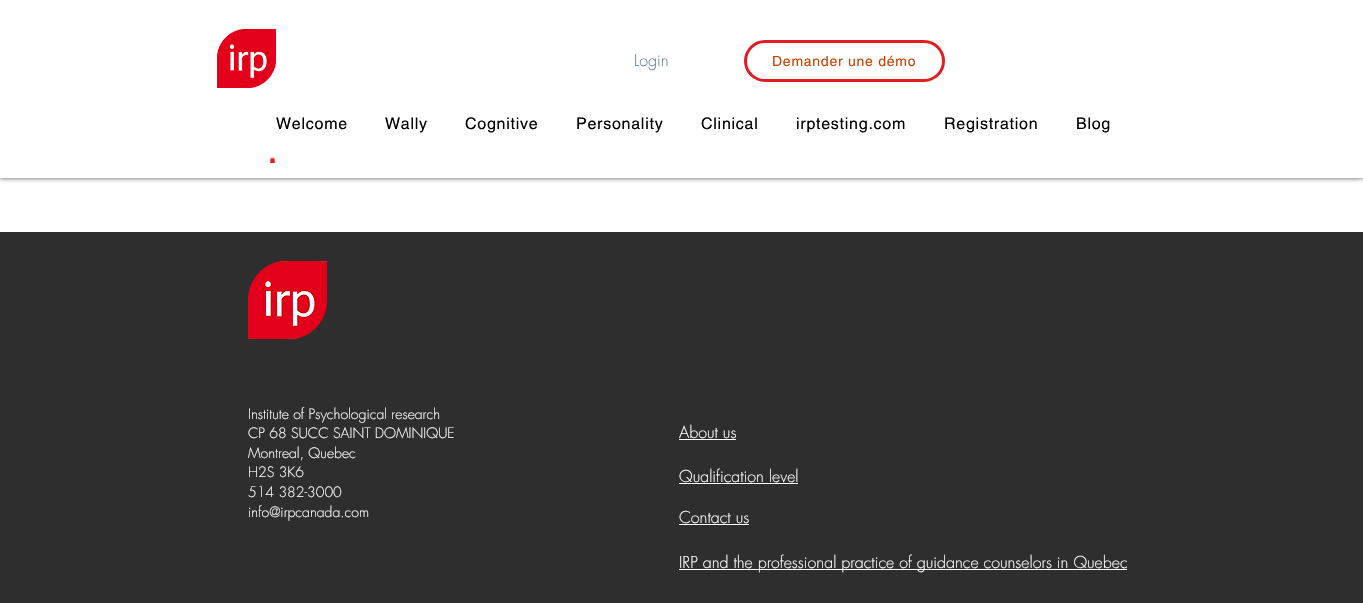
#include "include/core/SkBlurTypes.h"
#include "include/core/SkCanvas.h"
#include "include/core/SkData.h"
#include "include/core/SkFont.h"
#include "include/core/SkFontMgr.h"
#include "include/core/SkImage.h"
#include "include/core/SkMaskFilter.h"
#include "include/core/SkPaint.h"
#include "include/core/SkPathBuilder.h"
#include "include/core/SkTextBlob.h"
#include "include/effects/SkDashPathEffect.h"
#include "include/effects/SkGradientShader.h"
#include "include/utils/SkParsePath.h"

extern sk_sp<SkFontMgr> fontMgr;

void draw(SkCanvas* canvas) {
  SkPaint p;
  p.setAntiAlias(true);
  auto spacedText = [&](const char* s, float x, float y, const SkFont& font, const SkPaint& ink, float letter, float word) {
    std::vector<SkGlyphID> glyphs(font.countText(s, strlen(s), SkTextEncoding::kUTF8));
    std::vector<float> xs(glyphs.size());
    font.textToGlyphs(s, strlen(s), SkTextEncoding::kUTF8, glyphs);
    font.getXPos(glyphs, xs, x);
    float extra = 0;
    for (size_t i = 0; i < glyphs.size(); i++) {
      xs[i] += extra;
      extra += letter + word * (glyphs[i] == font.unicharToGlyph(' '));
    }
    canvas->drawTextBlob(SkTextBlob::MakeFromPosHGlyphs(glyphs, xs, y, font), 0, 0, ink);
  };
  canvas->clear(SK_ColorWHITE);
  p.setColor(SkColorSetARGB(179, 0, 0, 0));
  p.setMaskFilter(SkMaskFilter::MakeBlur(kNormal_SkBlurStyle, 2.5f));
  canvas->drawRect(SkRect::MakeLTRB(0, 0, 1363, 178), p);
  p.setMaskFilter(nullptr);
  p.setColor(SK_ColorWHITE);
  canvas->drawRect(SkRect::MakeLTRB(0, 0, 1363, 178), p);
  canvas->drawImageRect(SkImages::DeferredFromEncodedData(SkData::MakeFromFileName("images/1.png")), SkRect::MakeLTRB(217, 29, 276, 88), SkSamplingOptions());
  p.setStyle(SkPaint::kStroke_Style);
  p.setStrokeWidth(3);
  p.setColor(SkColorSetRGB(226, 28, 33));
  canvas->drawRoundRect(SkRect::MakeLTRB(745.5f, 41.5f, 943.5f, 80.5f), 19.5f, 19.5f, p);
  canvas->drawImageRect(SkImages::DeferredFromEncodedData(SkData::MakeFromFileName("images/2.png")), SkRect::MakeLTRB(270, 157, 275, 163), SkSamplingOptions());
  p.setStyle(SkPaint::kFill_Style);
  p.setColor(SkColorSetRGB(47, 46, 46));
  canvas->drawRect(SkRect::MakeLTRB(0, 232, 1363, 603), p);
  canvas->drawImageRect(SkImages::DeferredFromEncodedData(SkData::MakeFromFileName("images/3.png")), SkRect::MakeLTRB(248, 261, 327, 339), SkSamplingOptions());
  p.setColor(SK_ColorWHITE);
  canvas->drawRect(SkRect::MakeLTRB(679, 439, 736, 440), p);
  canvas->drawRect(SkRect::MakeLTRB(679, 483, 798, 484), p);
  canvas->drawRect(SkRect::MakeLTRB(679, 524, 749, 525), p);
  canvas->drawRect(SkRect::MakeLTRB(679, 569, 1127, 570), p);
  SkFont font1(fontMgr->matchFamilyStyle("futura", SkFontStyle(300, SkFontStyle::kNormal_Width, SkFontStyle::kUpright_Slant)), 16);
  font1.setSubpixel(true);
  p.setColor(SkColorSetRGB(96, 125, 150));
  canvas->drawString("Login", 634, 66, font1, p);
  SkFont font2(fontMgr->matchFamilyStyle("helvetica", SkFontStyle::Normal()), 14);
  font2.setSubpixel(true);
  p.setColor(SkColorSetRGB(199, 67, 0));
  spacedText("Demander une démo", 772, 66, font2, p, 0.75f, 0);
  SkFont font3(fontMgr->matchFamilyStyle("helvetica", SkFontStyle::Normal()), 16);
  font3.setSubpixel(true);
  p.setColor(SK_ColorBLACK);
  spacedText("Welcome", 276, 129, font3, p, 0.75f, 0);
  spacedText("Wally", 385, 129, font3, p, 0.75f, 0);
  spacedText("Cognitive", 465, 129, font3, p, 0.75f, 0);
  spacedText("Personality", 576, 129, font3, p, 0.75f, 0);
  spacedText("Clinical", 701, 129, font3, p, 0.75f, 0);
  spacedText("irptesting.com", 796, 129, font3, p, 0.75f, 0);
  spacedText("Registration", 944, 129, font3, p, 0.75f, 0);
  spacedText("Blog", 1076, 129, font3, p, 0.75f, 0);
  SkFont font4(fontMgr->matchFamilyStyle("futura", SkFontStyle(300, SkFontStyle::kNormal_Width, SkFontStyle::kUpright_Slant)), 14);
  font4.setSubpixel(true);
  p.setColor(SK_ColorWHITE);
  canvas->drawString("Institute of Psychological research", 248, 419, font4, p);
  canvas->drawString("CP 68 SUCC SAINT DOMINIQUE", 248, 438, font4, p);
  canvas->drawString("Montreal, Quebec", 248, 458, font4, p);
  canvas->drawString("H2S 3K6", 248, 477, font4, p);
  canvas->drawString("514 382-3000", 248, 497, font4, p);
  canvas->drawString("info@irpcanada.com", 248, 517, font4, p);
  canvas->drawString("About us", 679, 438, font1, p);
  canvas->drawString("Qualification level", 679, 482, font1, p);
  canvas->drawString("Contact us", 679, 523, font1, p);
  canvas->drawString("IRP and the professional practice of guidance counselors in Quebec", 679, 568, font1, p);
}
